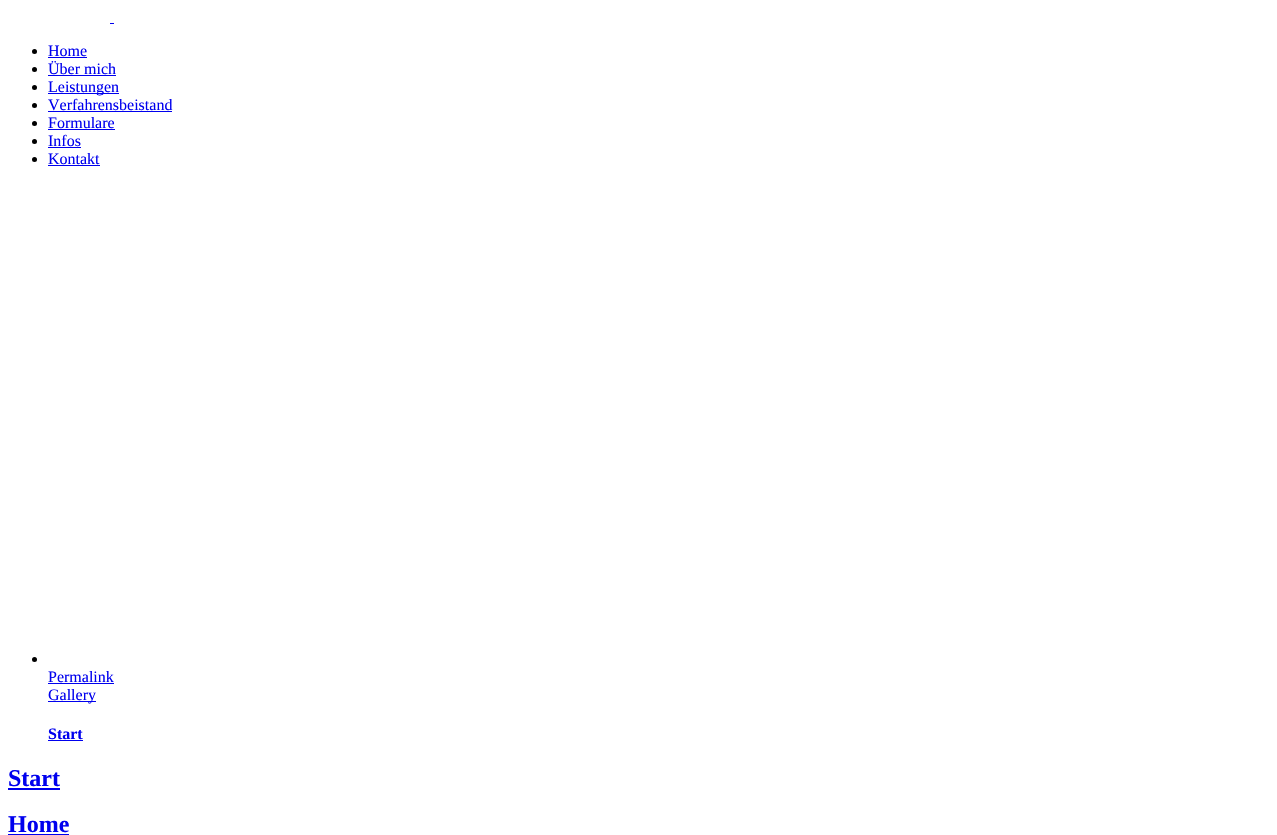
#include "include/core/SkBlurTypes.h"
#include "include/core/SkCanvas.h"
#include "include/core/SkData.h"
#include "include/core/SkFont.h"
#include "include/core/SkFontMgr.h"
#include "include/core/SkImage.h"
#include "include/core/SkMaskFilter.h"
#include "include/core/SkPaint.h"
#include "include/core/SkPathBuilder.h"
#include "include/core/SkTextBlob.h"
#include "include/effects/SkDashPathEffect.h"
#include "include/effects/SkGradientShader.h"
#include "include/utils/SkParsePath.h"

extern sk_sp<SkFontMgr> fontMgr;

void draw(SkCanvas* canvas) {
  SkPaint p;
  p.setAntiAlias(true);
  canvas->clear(SK_ColorWHITE);
  p.setColor(SkColorSetRGB(0, 0, 238));
  canvas->drawRect(SkRect::MakeLTRB(110, 23, 114, 24), p);
  p.setColor(SK_ColorBLACK);
  canvas->drawCircle(34.5f, 51.5f, 2.5f, p);
  p.setColor(SkColorSetRGB(0, 0, 238));
  canvas->drawRect(SkRect::MakeLTRB(48, 57, 87, 58), p);
  p.setColor(SK_ColorBLACK);
  canvas->drawCircle(34.5f, 69.5f, 2.5f, p);
  p.setColor(SkColorSetRGB(0, 0, 238));
  canvas->drawRect(SkRect::MakeLTRB(48, 75, 116, 76), p);
  p.setColor(SK_ColorBLACK);
  canvas->drawCircle(34.5f, 87.5f, 2.5f, p);
  p.setColor(SkColorSetRGB(0, 0, 238));
  canvas->drawRect(SkRect::MakeLTRB(48, 93, 119, 94), p);
  p.setColor(SK_ColorBLACK);
  canvas->drawCircle(34.5f, 105.5f, 2.5f, p);
  p.setColor(SkColorSetRGB(0, 0, 238));
  canvas->drawRect(SkRect::MakeLTRB(48, 111, 172, 112), p);
  p.setColor(SK_ColorBLACK);
  canvas->drawCircle(34.5f, 123.5f, 2.5f, p);
  p.setColor(SkColorSetRGB(0, 0, 238));
  canvas->drawRect(SkRect::MakeLTRB(48, 129, 115, 130), p);
  p.setColor(SK_ColorBLACK);
  canvas->drawCircle(34.5f, 141.5f, 2.5f, p);
  p.setColor(SkColorSetRGB(0, 0, 238));
  canvas->drawRect(SkRect::MakeLTRB(48, 147, 81, 148), p);
  p.setColor(SK_ColorBLACK);
  canvas->drawCircle(34.5f, 159.5f, 2.5f, p);
  p.setColor(SkColorSetRGB(0, 0, 238));
  canvas->drawRect(SkRect::MakeLTRB(48, 165, 100, 166), p);
  p.setColor(SK_ColorBLACK);
  canvas->drawCircle(34.5f, 659.5f, 2.5f, p);
  p.setColor(SkColorSetRGB(0, 0, 238));
  canvas->drawRect(SkRect::MakeLTRB(48, 683, 114, 684), p);
  canvas->drawRect(SkRect::MakeLTRB(48, 701, 96, 702), p);
  canvas->drawRect(SkRect::MakeLTRB(48, 740, 83, 741), p);
  canvas->drawRect(SkRect::MakeLTRB(8, 788, 60, 790), p);
  canvas->drawRect(SkRect::MakeLTRB(8, 834, 69, 835), p);
  SkFont font1(fontMgr->matchFamilyStyle("Liberation Serif", SkFontStyle::Normal()), 16);
  font1.setSubpixel(true);
  canvas->drawString("Home", 48, 56, font1, p);
  canvas->drawString("Über mich", 48, 74, font1, p);
  canvas->drawString("Leistungen", 48, 92, font1, p);
  canvas->drawString("Verfahrensbeistand", 48, 110, font1, p);
  canvas->drawString("Formulare", 48, 128, font1, p);
  canvas->drawString("Infos", 48, 146, font1, p);
  canvas->drawString("Kontakt", 48, 164, font1, p);
  canvas->drawString("Permalink", 48, 682, font1, p);
  canvas->drawString("Gallery", 48, 700, font1, p);
  SkFont font2(fontMgr->matchFamilyStyle("Liberation Serif", SkFontStyle::Bold()), 16);
  font2.setSubpixel(true);
  canvas->drawString("Start", 48, 739, font2, p);
  SkFont font3(fontMgr->matchFamilyStyle("Liberation Serif", SkFontStyle::Bold()), 24);
  font3.setSubpixel(true);
  canvas->drawString("Start", 8, 786, font3, p);
  canvas->drawString("Home", 8, 832, font3, p);
}
